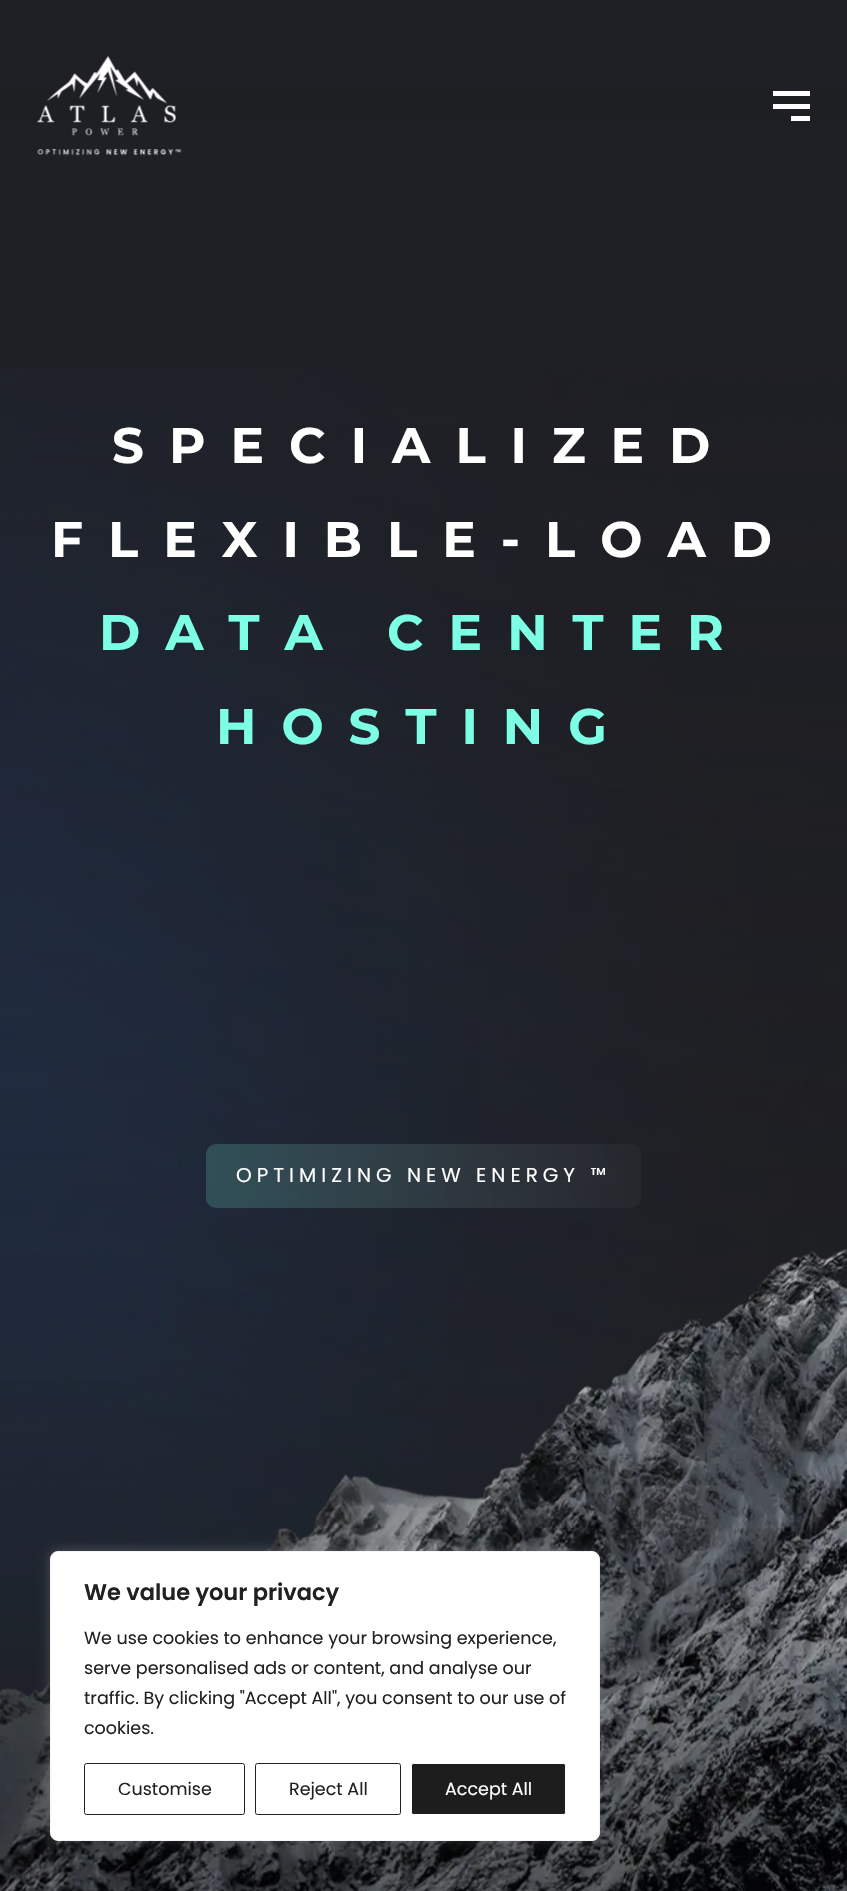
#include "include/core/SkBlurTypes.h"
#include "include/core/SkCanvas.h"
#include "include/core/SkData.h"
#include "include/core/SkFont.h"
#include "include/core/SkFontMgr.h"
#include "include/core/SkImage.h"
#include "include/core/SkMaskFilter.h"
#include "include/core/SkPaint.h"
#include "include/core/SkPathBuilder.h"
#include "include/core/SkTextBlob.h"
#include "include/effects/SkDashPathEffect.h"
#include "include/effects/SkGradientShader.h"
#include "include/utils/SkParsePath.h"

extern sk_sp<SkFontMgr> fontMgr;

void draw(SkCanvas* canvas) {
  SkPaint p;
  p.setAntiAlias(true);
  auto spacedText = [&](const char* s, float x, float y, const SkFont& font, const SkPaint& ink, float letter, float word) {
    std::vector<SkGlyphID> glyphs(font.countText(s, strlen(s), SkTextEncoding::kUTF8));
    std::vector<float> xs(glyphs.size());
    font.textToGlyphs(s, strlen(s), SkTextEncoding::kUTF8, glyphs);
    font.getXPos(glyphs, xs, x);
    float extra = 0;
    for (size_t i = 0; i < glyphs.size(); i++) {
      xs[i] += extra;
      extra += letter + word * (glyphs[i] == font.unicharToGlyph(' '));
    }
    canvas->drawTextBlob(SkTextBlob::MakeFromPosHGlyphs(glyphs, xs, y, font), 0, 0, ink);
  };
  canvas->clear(SkColorSetRGB(31, 32, 38));
  {
    const SkColor colors[] = {SkColorSetRGB(31, 32, 38), SkColorSetRGB(30, 31, 35), SkColorSetRGB(31, 32, 38)};
    const float stops[] = {0, 0.5f, 1};
    const SkPoint ends[] = {{424, 0}, {424, 213}};
    p.setShader(SkGradientShader::MakeLinear(ends, colors, stops, 3, SkTileMode::kClamp));
    p.setAlpha(255);
  }
  canvas->drawRect(SkRect::MakeLTRB(0, 89, 847, 124), p);
  canvas->drawImageRect(SkImages::DeferredFromEncodedData(SkData::MakeFromFileName("images/1.png")), SkRect::MakeLTRB(37, 56, 182, 156), SkSamplingOptions());
  p.setShader(nullptr);
  p.setColor(SK_ColorWHITE);
  canvas->drawRect(SkRect::MakeLTRB(773, 91, 810, 96), p);
  canvas->drawRect(SkRect::MakeLTRB(773, 104, 810, 109), p);
  canvas->drawRect(SkRect::MakeLTRB(791, 116, 810, 121), p);
  canvas->drawImageRect(SkImages::DeferredFromEncodedData(SkData::MakeFromFileName("images/2.png")), SkRect::MakeLTRB(0, 368, 847, 1699), SkSamplingOptions());
  canvas->drawImageRect(SkImages::DeferredFromEncodedData(SkData::MakeFromFileName("images/3.png")), SkRect::MakeLTRB(0, 1248, 847, 1891), SkSamplingOptions());
  {
    const SkColor colors[] = {SkColorSetARGB(5, 255, 255, 255), SkColorSetARGB(46, 125, 255, 229)};
    const float stops[] = {0, 1};
    const SkPoint ends[] = {{664, 1171}, {206, 1179}};
    p.setShader(SkGradientShader::MakeLinear(ends, colors, stops, 2, SkTileMode::kClamp));
    p.setAlpha(255);
  }
  canvas->drawRoundRect(SkRect::MakeLTRB(206, 1144, 641, 1208), 10, 10, p);
  p.setShader(nullptr);
  p.setColor(SkColorSetARGB(77, 172, 171, 171));
  p.setMaskFilter(SkMaskFilter::MakeBlur(kNormal_SkBlurStyle, 6));
  canvas->drawRoundRect(SkRect::MakeLTRB(50, 1550, 600, 1840), 8, 8, p);
  p.setMaskFilter(nullptr);
  p.setColor(SK_ColorWHITE);
  canvas->drawRoundRect(SkRect::MakeLTRB(50.5f, 1551.5f, 599.5f, 1840.5f), 7.5f, 7.5f, p);
  p.setStyle(SkPaint::kStroke_Style);
  p.setStrokeWidth(1);
  p.setColor(SkColorSetRGB(244, 244, 244));
  canvas->drawRoundRect(SkRect::MakeLTRB(50.5f, 1551.5f, 599.5f, 1840.5f), 7.5f, 7.5f, p);
  p.setColor(SkColorSetRGB(33, 33, 33));
  canvas->drawRoundRect(SkRect::MakeLTRB(84.5f, 1763.5f, 244.5f, 1814.5f), 2, 2, p);
  canvas->drawRoundRect(SkRect::MakeLTRB(255.5f, 1763.5f, 400.5f, 1814.5f), 2, 2, p);
  p.setStyle(SkPaint::kFill_Style);
  p.setColor(SkColorSetRGB(29, 29, 29));
  canvas->drawRoundRect(SkRect::MakeLTRB(411.5f, 1763.5f, 565.5f, 1814.5f), 2, 2, p);
  p.setStyle(SkPaint::kStroke_Style);
  p.setColor(SK_ColorWHITE);
  canvas->drawRoundRect(SkRect::MakeLTRB(411.5f, 1763.5f, 565.5f, 1814.5f), 2, 2, p);
  SkFont font1(fontMgr->matchFamilyStyle("Montserrat", SkFontStyle::Bold()), 50);
  font1.setSubpixel(true);
  p.setStyle(SkPaint::kFill_Style);
  spacedText("SPECIALIZED", 112, 463, font1, p, 25, 0);
  spacedText("FLEXIBLE-LOAD", 51, 557, font1, p, 25, 0);
  p.setColor(SkColorSetRGB(125, 255, 229));
  spacedText("DATA CENTER", 99, 650, font1, p, 25, 0);
  spacedText("HOSTING", 216, 744, font1, p, 25, 0);
  SkFont font2(fontMgr->matchFamilyStyle("Poppins", SkFontStyle::Normal()), 20);
  font2.setSubpixel(true);
  p.setColor(SK_ColorWHITE);
  spacedText("OPTIMIZING NEW ENERGY ™", 236, 1182, font2, p, 5, 0);
  SkFont font3(fontMgr->matchFamilyStyle("Poppins", SkFontStyle(600, SkFontStyle::kNormal_Width, SkFontStyle::kUpright_Slant)), 22.5f);
  font3.setSubpixel(true);
  p.setColor(SkColorSetRGB(33, 33, 33));
  canvas->drawString("We value your privacy", 84, 1600, font3, p);
  SkFont font4(fontMgr->matchFamilyStyle("Poppins", SkFontStyle::Normal()), 17.5f);
  font4.setSubpixel(true);
  canvas->drawString("We use cookies to enhance your browsing experience,", 84, 1644, font4, p);
  canvas->drawString("serve personalised ads or content, and analyse our", 84, 1674, font4, p);
  canvas->drawString("traffic. By clicking \"Accept All\", you consent to our use of", 84, 1704, font4, p);
  canvas->drawString("cookies.", 84, 1734, font4, p);
  canvas->drawString("Customise", 118, 1795, font4, p);
  canvas->drawString("Reject All", 289, 1795, font4, p);
  p.setColor(SK_ColorWHITE);
  canvas->drawString("Accept All", 445, 1795, font4, p);
}
